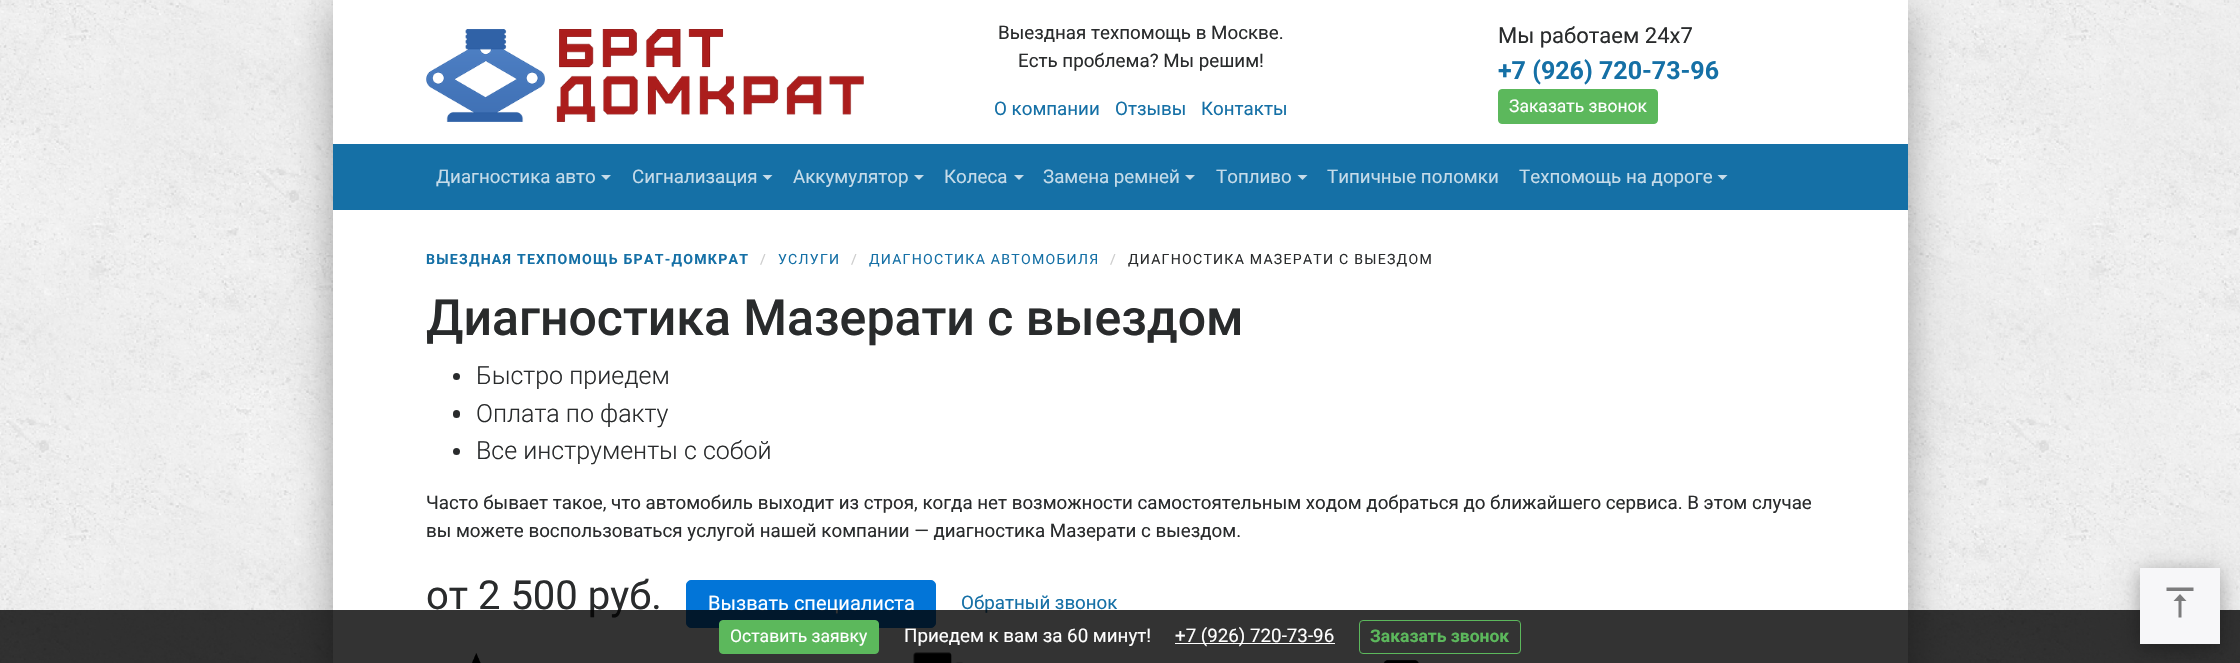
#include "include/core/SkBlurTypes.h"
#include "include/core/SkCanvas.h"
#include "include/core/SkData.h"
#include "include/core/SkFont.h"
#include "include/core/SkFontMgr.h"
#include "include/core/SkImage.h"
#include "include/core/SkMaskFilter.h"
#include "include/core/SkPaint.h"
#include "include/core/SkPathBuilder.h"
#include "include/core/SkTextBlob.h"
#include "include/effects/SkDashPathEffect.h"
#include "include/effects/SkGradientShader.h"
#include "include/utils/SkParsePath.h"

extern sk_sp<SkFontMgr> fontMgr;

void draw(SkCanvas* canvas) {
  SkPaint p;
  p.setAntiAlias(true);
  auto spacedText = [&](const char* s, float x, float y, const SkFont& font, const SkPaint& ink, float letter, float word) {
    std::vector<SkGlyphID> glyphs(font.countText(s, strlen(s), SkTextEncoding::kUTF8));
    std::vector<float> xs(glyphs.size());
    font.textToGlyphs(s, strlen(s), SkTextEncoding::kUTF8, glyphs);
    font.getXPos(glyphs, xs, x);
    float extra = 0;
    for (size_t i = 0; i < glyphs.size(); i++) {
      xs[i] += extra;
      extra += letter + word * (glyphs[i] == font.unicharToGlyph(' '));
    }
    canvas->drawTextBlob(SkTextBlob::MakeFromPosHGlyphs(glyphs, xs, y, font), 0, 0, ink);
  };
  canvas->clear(SK_ColorWHITE);
  canvas->drawImageRect(SkImages::DeferredFromEncodedData(SkData::MakeFromFileName("images/1.png")), SkRect::MakeLTRB(0, 0, 2240, 663), SkSamplingOptions());
  p.setColor(SkColorSetARGB(84, 0, 0, 0));
  p.setMaskFilter(SkMaskFilter::MakeBlur(kNormal_SkBlurStyle, 20));
  canvas->drawRect(SkRect::MakeLTRB(333, 9, 1908, 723), p);
  p.setMaskFilter(nullptr);
  p.setColor(SK_ColorWHITE);
  canvas->drawRect(SkRect::MakeLTRB(333, 0, 1908, 663), p);
  canvas->drawImageRect(SkImages::DeferredFromEncodedData(SkData::MakeFromFileName("images/2.png")), SkRect::MakeLTRB(426, 29, 864, 122), SkSamplingOptions());
  p.setColor(SkColorSetRGB(92, 184, 92));
  canvas->drawRoundRect(SkRect::MakeLTRB(1498.5f, 89.5f, 1657.5f, 123.5f), 3.5f, 3.5f, p);
  p.setStyle(SkPaint::kStroke_Style);
  p.setStrokeWidth(1);
  canvas->drawRoundRect(SkRect::MakeLTRB(1498.5f, 89.5f, 1657.5f, 123.5f), 3.5f, 3.5f, p);
  p.setStyle(SkPaint::kFill_Style);
  p.setColor(SkColorSetRGB(21, 112, 166));
  canvas->drawRect(SkRect::MakeLTRB(333, 144, 1908, 210), p);
  p.setColor(SkColorSetRGB(197, 219, 233));
  canvas->drawPath(SkPathBuilder().moveTo(601, 175).lineTo(611, 175).lineTo(606, 180).close().detach(), p);
  canvas->drawPath(SkPathBuilder().moveTo(762.5f, 175).lineTo(772.5f, 175).lineTo(767.5f, 180).close().detach(), p);
  canvas->drawPath(SkPathBuilder().moveTo(914, 175).lineTo(924, 175).lineTo(919, 180).close().detach(), p);
  canvas->drawPath(SkPathBuilder().moveTo(1014, 175).lineTo(1024, 175).lineTo(1019, 180).close().detach(), p);
  canvas->drawPath(SkPathBuilder().moveTo(1185, 175).lineTo(1195, 175).lineTo(1190, 180).close().detach(), p);
  canvas->drawPath(SkPathBuilder().moveTo(1297.5f, 175).lineTo(1307.5f, 175).lineTo(1302.5f, 180).close().detach(), p);
  canvas->drawPath(SkPathBuilder().moveTo(1717.5f, 175).lineTo(1727.5f, 175).lineTo(1722.5f, 180).close().detach(), p);
  p.setColor(SkColorSetRGB(41, 43, 44));
  canvas->drawCircle(456.5f, 376.5f, 3.5f, p);
  canvas->drawRoundRect(SkRect::MakeLTRB(453, 410, 460, 418), 3.5f, 3.5f, p);
  canvas->drawCircle(456.5f, 451.5f, 3.5f, p);
  p.setColor(SkColorSetRGB(2, 117, 216));
  canvas->drawRoundRect(SkRect::MakeLTRB(686.5f, 580.5f, 935.5f, 627.5f), 4.5f, 4.5f, p);
  p.setStyle(SkPaint::kStroke_Style);
  canvas->drawRoundRect(SkRect::MakeLTRB(686.5f, 580.5f, 935.5f, 627.5f), 4.5f, 4.5f, p);
  canvas->drawImageRect(SkImages::DeferredFromEncodedData(SkData::MakeFromFileName("images/3.png")), SkRect::MakeLTRB(472, 653, 481, 663), SkSamplingOptions());
  canvas->drawImageRect(SkImages::DeferredFromEncodedData(SkData::MakeFromFileName("images/4.png")), SkRect::MakeLTRB(913, 652, 963, 663), SkSamplingOptions());
  canvas->drawImageRect(SkImages::DeferredFromEncodedData(SkData::MakeFromFileName("images/5.png")), SkRect::MakeLTRB(1383, 660, 1419, 663), SkSamplingOptions());
  SkFont font1(fontMgr->matchFamilyStyle("Roboto", SkFontStyle::Normal()), 18.75f);
  font1.setSubpixel(true);
  p.setStyle(SkPaint::kFill_Style);
  p.setColor(SkColorSetRGB(41, 43, 44));
  canvas->drawString("Выездная техпомощь в Москве.", 998, 39, font1, p);
  canvas->drawString("Есть проблема? Мы решим!", 1018, 67, font1, p);
  p.setColor(SkColorSetRGB(21, 112, 166));
  canvas->drawString("О компании", 994, 115, font1, p);
  canvas->drawString("Отзывы", 1115, 115, font1, p);
  canvas->drawString("Контакты", 1201, 115, font1, p);
  SkFont font2(fontMgr->matchFamilyStyle("Roboto", SkFontStyle::Normal()), 22);
  font2.setSubpixel(true);
  p.setColor(SkColorSetRGB(41, 43, 44));
  canvas->drawString("Мы работаем 24x7", 1498, 43, font2, p);
  SkFont font3(fontMgr->matchFamilyStyle("Roboto", SkFontStyle::Bold()), 25);
  font3.setSubpixel(true);
  p.setColor(SkColorSetRGB(21, 112, 166));
  canvas->drawString("+7 (926) 720-73-96", 1498, 79, font3, p);
  SkFont font4(fontMgr->matchFamilyStyle("Roboto", SkFontStyle::Normal()), 17.5f);
  font4.setSubpixel(true);
  p.setColor(SK_ColorWHITE);
  canvas->drawString("Заказать звонок", 1509, 112, font4, p);
  p.setColor(SkColorSetRGB(197, 219, 233));
  canvas->drawString("Диагностика авто", 436, 183, font1, p);
  canvas->drawString("Сигнализация", 632, 183, font1, p);
  canvas->drawString("Аккумулятор", 793, 183, font1, p);
  canvas->drawString("Колеса", 944, 183, font1, p);
  canvas->drawString("Замена ремней", 1043, 183, font1, p);
  canvas->drawString("Топливо", 1216, 183, font1, p);
  canvas->drawString("Типичные поломки", 1327, 183, font1, p);
  canvas->drawString("Техпомощь на дороге", 1519, 183, font1, p);
  SkFont font5(fontMgr->matchFamilyStyle("Roboto", SkFontStyle::Bold()), 14.1f);
  font5.setSubpixel(true);
  p.setColor(SkColorSetRGB(21, 112, 166));
  spacedText("ВЫЕЗДНАЯ ТЕХПОМОЩЬ БРАТ-ДОМКРАТ", 426, 264, font5, p, 1.25f, 0);
  SkFont font6(fontMgr->matchFamilyStyle("Roboto", SkFontStyle::Normal()), 14.1f);
  font6.setSubpixel(true);
  p.setColor(SkColorSetRGB(204, 204, 204));
  spacedText("/", 760, 264, font6, p, 1.25f, 0);
  p.setColor(SkColorSetRGB(21, 112, 166));
  spacedText("УСЛУГИ", 778, 264, font6, p, 1.25f, 0);
  p.setColor(SkColorSetRGB(204, 204, 204));
  spacedText("/", 851, 264, font6, p, 1.25f, 0);
  p.setColor(SkColorSetRGB(21, 112, 166));
  spacedText("ДИАГНОСТИКА АВТОМОБИЛЯ", 869, 264, font6, p, 1.25f, 0);
  p.setColor(SkColorSetRGB(204, 204, 204));
  spacedText("/", 1110, 264, font6, p, 1.25f, 0);
  p.setColor(SkColorSetRGB(41, 43, 44));
  spacedText("ДИАГНОСТИКА МАЗЕРАТИ С ВЫЕЗДОМ", 1128, 264, font6, p, 1.25f, 0);
  SkFont font7(fontMgr->matchFamilyStyle("Roboto", SkFontStyle(500, SkFontStyle::kNormal_Width, SkFontStyle::kUpright_Slant)), 50);
  font7.setSubpixel(true);
  canvas->drawString("Диагностика Мазерати с выездом", 426, 335, font7, p);
  SkFont font8(fontMgr->matchFamilyStyle("Roboto", SkFontStyle(300, SkFontStyle::kNormal_Width, SkFontStyle::kUpright_Slant)), 25);
  font8.setSubpixel(true);
  canvas->drawString("Быстро приедем", 476, 384, font8, p);
  canvas->drawString("Оплата по факту", 476, 422, font8, p);
  canvas->drawString("Все инструменты с собой", 476, 459, font8, p);
  canvas->drawString("Часто бывает такое, что автомобиль выходит из строя, когда нет возможности самостоятельным ходом добраться до ближайшего сервиса. В этом случае", 426, 509, font1, p);
  canvas->drawString("вы можете воспользоваться услугой нашей компании — диагностика Мазерати с выездом.", 426, 537, font1, p);
  SkFont font9(fontMgr->matchFamilyStyle("Roboto", SkFontStyle::Normal()), 40);
  font9.setSubpixel(true);
  canvas->drawString("от 2 500 руб.", 426, 609, font9, p);
  SkFont font10(fontMgr->matchFamilyStyle("Roboto", SkFontStyle::Normal()), 20);
  font10.setSubpixel(true);
  p.setColor(SK_ColorWHITE);
  canvas->drawString("Вызвать специалиста", 708, 610, font10, p);
  p.setColor(SkColorSetRGB(21, 112, 166));
  canvas->drawString("Обратный звонок", 961, 609, font1, p);
  p.setColor(SkColorSetARGB(204, 0, 0, 0));
  canvas->drawRect(SkRect::MakeLTRB(0, 610, 2240, 663), p);
  p.setColor(SkColorSetARGB(84, 0, 0, 0));
  p.setMaskFilter(SkMaskFilter::MakeBlur(kNormal_SkBlurStyle, 10));
  canvas->drawRect(SkRect::MakeLTRB(2140, 571, 2220, 648), p);
  p.setMaskFilter(nullptr);
  p.setColor(SkColorSetRGB(247, 247, 249));
  canvas->drawRect(SkRect::MakeLTRB(2140, 568, 2220, 644), p);
  p.setColor(SkColorSetRGB(124, 124, 125));
  canvas->drawPath(SkPathBuilder().moveTo(2166.5f, 587.5f).lineTo(2193.5f, 587.5f).lineTo(2193.5f, 591).lineTo(2166.5f, 591).close().moveTo(2173.5f, 601).lineTo(2180, 594).lineTo(2186.5f, 601).lineTo(2181.5f, 601).lineTo(2181.5f, 617.5f).lineTo(2178.5f, 617.5f).lineTo(2178.5f, 601).close().detach(), p);
  p.setColor(SkColorSetRGB(92, 184, 92));
  canvas->drawRoundRect(SkRect::MakeLTRB(719.5f, 620.5f, 878.5f, 653.5f), 3.5f, 3.5f, p);
  p.setStyle(SkPaint::kStroke_Style);
  canvas->drawRoundRect(SkRect::MakeLTRB(719.5f, 620.5f, 878.5f, 653.5f), 3.5f, 3.5f, p);
  p.setStyle(SkPaint::kFill_Style);
  p.setColor(SK_ColorWHITE);
  canvas->drawString("Оставить заявку", 730, 642, font4, p);
  canvas->drawString("Приедем к вам за 60 минут!", 904, 642, font1, p);
  canvas->drawRect(SkRect::MakeLTRB(1175, 643, 1335, 644), p);
  canvas->drawString("+7 (926) 720-73-96", 1175, 642, font1, p);
  p.setStyle(SkPaint::kStroke_Style);
  p.setColor(SkColorSetRGB(92, 184, 92));
  canvas->drawRoundRect(SkRect::MakeLTRB(1359.5f, 620.5f, 1520.5f, 653.5f), 3.5f, 3.5f, p);
  SkFont font11(fontMgr->matchFamilyStyle("Roboto", SkFontStyle::Bold()), 17.5f);
  font11.setSubpixel(true);
  p.setStyle(SkPaint::kFill_Style);
  canvas->drawString("Заказать звонок", 1370, 642, font11, p);
}
